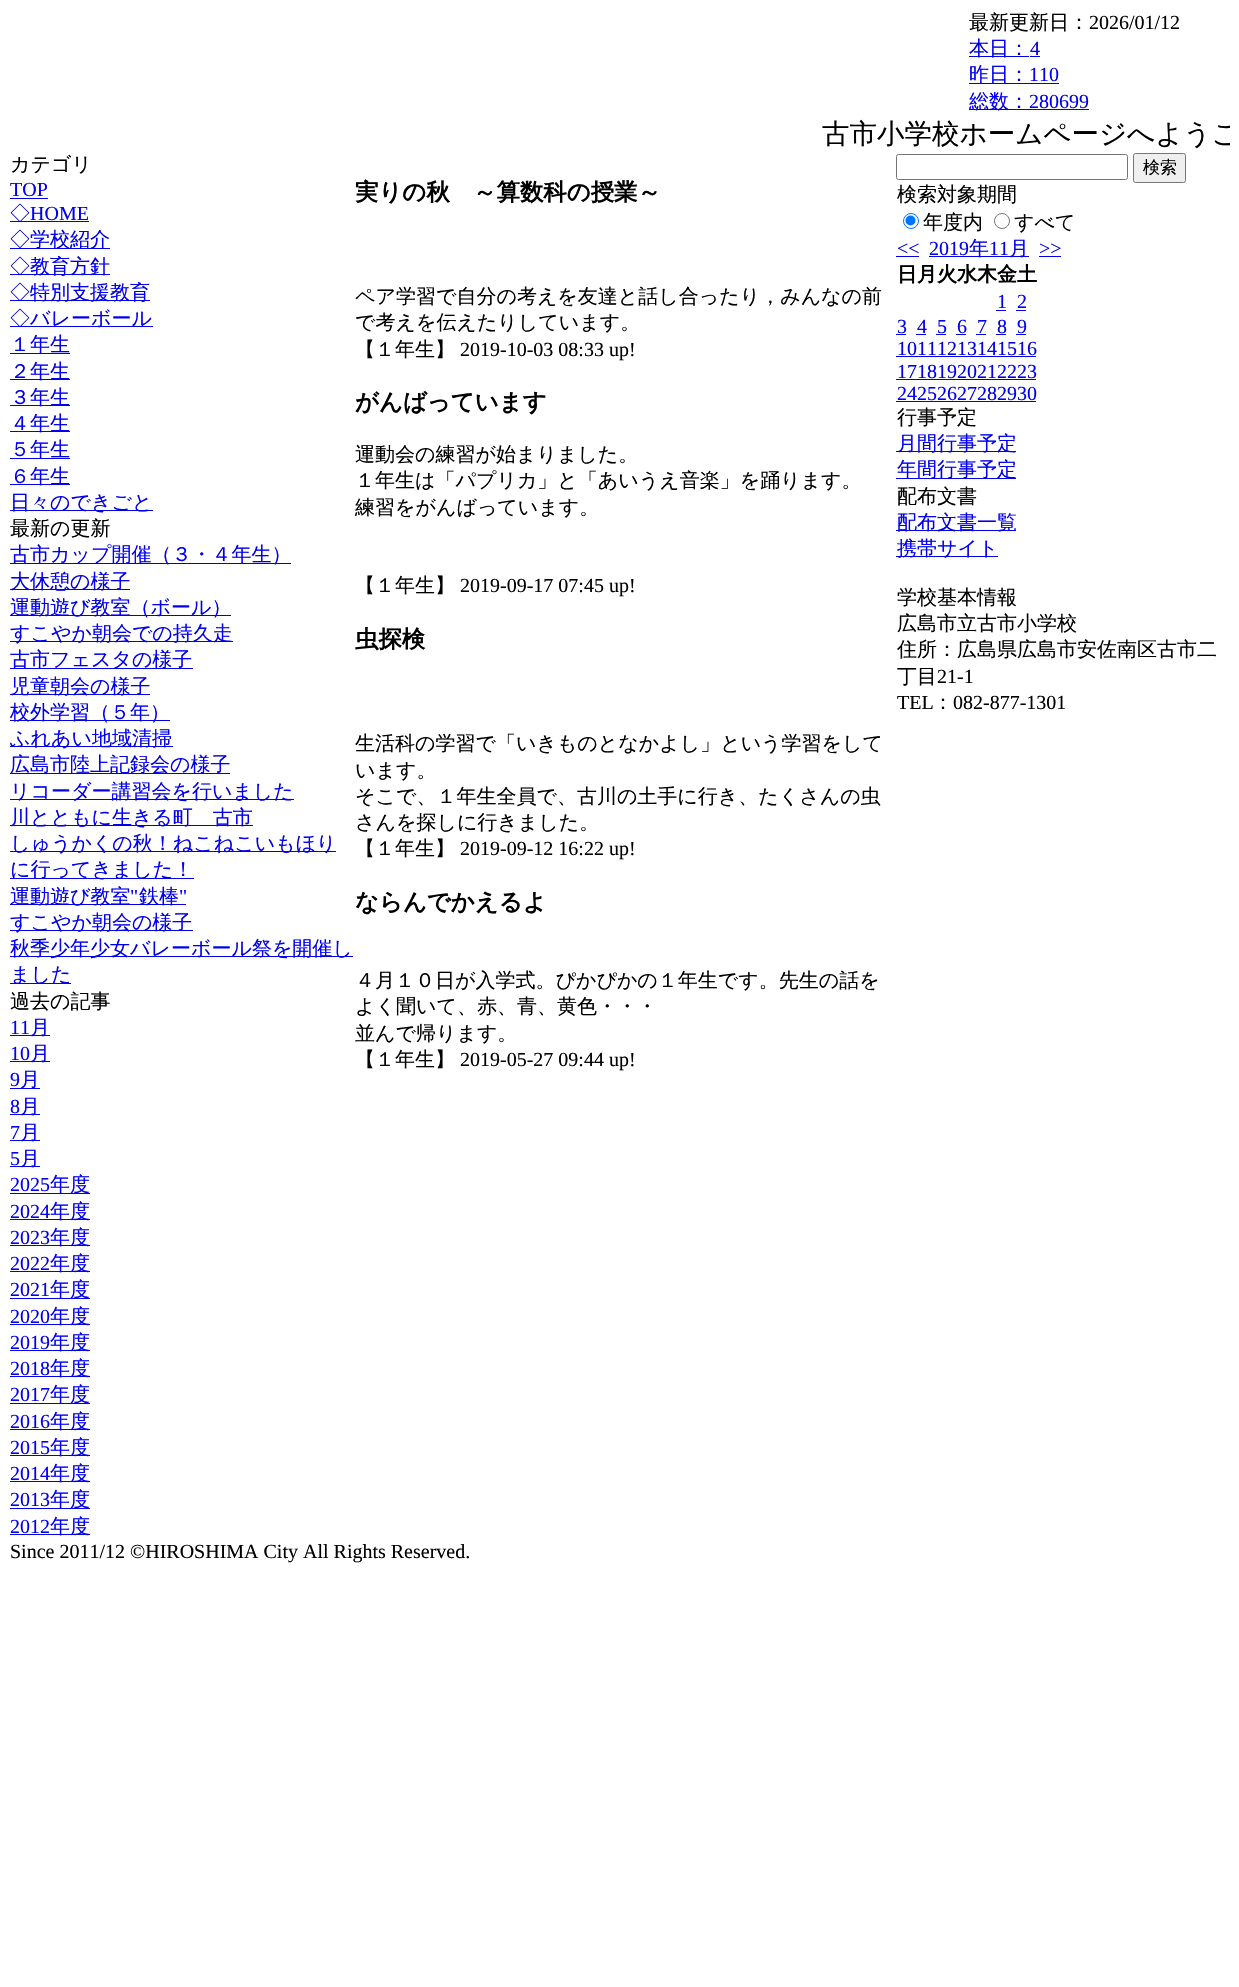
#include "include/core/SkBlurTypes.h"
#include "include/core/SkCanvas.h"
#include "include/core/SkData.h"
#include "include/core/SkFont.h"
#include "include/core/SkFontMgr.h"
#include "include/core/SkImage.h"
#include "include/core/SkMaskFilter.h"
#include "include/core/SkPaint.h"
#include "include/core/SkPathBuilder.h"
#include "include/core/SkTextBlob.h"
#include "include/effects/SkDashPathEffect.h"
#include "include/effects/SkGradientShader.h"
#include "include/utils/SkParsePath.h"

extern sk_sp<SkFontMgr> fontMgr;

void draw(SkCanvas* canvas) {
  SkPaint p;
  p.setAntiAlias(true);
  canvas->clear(SK_ColorWHITE);
  p.setColor(SkColorSetRGB(0, 0, 238));
  canvas->drawRect(SkRect::MakeLTRB(969, 56, 1029, 57), p);
  canvas->drawRect(SkRect::MakeLTRB(1030, 56, 1040, 57), p);
  canvas->drawRect(SkRect::MakeLTRB(969, 83, 1059, 84), p);
  canvas->drawRect(SkRect::MakeLTRB(969, 109, 1089, 110), p);
  canvas->drawRect(SkRect::MakeLTRB(10, 198, 48, 199), p);
  canvas->drawRect(SkRect::MakeLTRB(10, 221, 89, 222), p);
  canvas->drawRect(SkRect::MakeLTRB(10, 248, 110, 249), p);
  canvas->drawRect(SkRect::MakeLTRB(10, 274, 110, 275), p);
  canvas->drawRect(SkRect::MakeLTRB(10, 300, 150, 301), p);
  canvas->drawRect(SkRect::MakeLTRB(10, 326, 153, 327), p);
  canvas->drawRect(SkRect::MakeLTRB(10, 353, 70, 354), p);
  canvas->drawRect(SkRect::MakeLTRB(10, 379, 70, 380), p);
  canvas->drawRect(SkRect::MakeLTRB(10, 405, 70, 406), p);
  canvas->drawRect(SkRect::MakeLTRB(10, 431, 70, 432), p);
  canvas->drawRect(SkRect::MakeLTRB(10, 458, 70, 459), p);
  canvas->drawRect(SkRect::MakeLTRB(10, 484, 70, 485), p);
  canvas->drawRect(SkRect::MakeLTRB(10, 510, 153, 511), p);
  canvas->drawRect(SkRect::MakeLTRB(10, 563, 291, 564), p);
  canvas->drawRect(SkRect::MakeLTRB(10, 589, 130, 590), p);
  canvas->drawRect(SkRect::MakeLTRB(10, 615, 231, 616), p);
  canvas->drawRect(SkRect::MakeLTRB(10, 641, 233, 642), p);
  canvas->drawRect(SkRect::MakeLTRB(10, 668, 193, 669), p);
  canvas->drawRect(SkRect::MakeLTRB(10, 694, 150, 695), p);
  canvas->drawRect(SkRect::MakeLTRB(10, 720, 170, 721), p);
  canvas->drawRect(SkRect::MakeLTRB(10, 746, 173, 747), p);
  canvas->drawRect(SkRect::MakeLTRB(10, 773, 230, 774), p);
  canvas->drawRect(SkRect::MakeLTRB(10, 799, 294, 800), p);
  canvas->drawRect(SkRect::MakeLTRB(10, 825, 253, 826), p);
  canvas->drawRect(SkRect::MakeLTRB(10, 851, 336, 852), p);
  canvas->drawRect(SkRect::MakeLTRB(10, 878, 194, 879), p);
  canvas->drawRect(SkRect::MakeLTRB(10, 904, 186, 905), p);
  canvas->drawRect(SkRect::MakeLTRB(10, 930, 193, 931), p);
  canvas->drawRect(SkRect::MakeLTRB(10, 956, 353, 957), p);
  canvas->drawRect(SkRect::MakeLTRB(10, 983, 71, 984), p);
  canvas->drawRect(SkRect::MakeLTRB(10, 1035, 50, 1036), p);
  canvas->drawRect(SkRect::MakeLTRB(10, 1061, 50, 1062), p);
  canvas->drawRect(SkRect::MakeLTRB(10, 1088, 40, 1089), p);
  canvas->drawRect(SkRect::MakeLTRB(10, 1114, 40, 1115), p);
  canvas->drawRect(SkRect::MakeLTRB(10, 1140, 40, 1141), p);
  canvas->drawRect(SkRect::MakeLTRB(10, 1166, 40, 1167), p);
  canvas->drawRect(SkRect::MakeLTRB(10, 1193, 90, 1194), p);
  canvas->drawRect(SkRect::MakeLTRB(10, 1219, 90, 1220), p);
  canvas->drawRect(SkRect::MakeLTRB(10, 1245, 90, 1246), p);
  canvas->drawRect(SkRect::MakeLTRB(10, 1271, 90, 1272), p);
  canvas->drawRect(SkRect::MakeLTRB(10, 1298, 90, 1299), p);
  canvas->drawRect(SkRect::MakeLTRB(10, 1324, 90, 1325), p);
  canvas->drawRect(SkRect::MakeLTRB(10, 1350, 90, 1351), p);
  canvas->drawRect(SkRect::MakeLTRB(10, 1376, 90, 1377), p);
  canvas->drawRect(SkRect::MakeLTRB(10, 1403, 90, 1404), p);
  canvas->drawRect(SkRect::MakeLTRB(10, 1429, 90, 1430), p);
  canvas->drawRect(SkRect::MakeLTRB(10, 1455, 90, 1456), p);
  canvas->drawRect(SkRect::MakeLTRB(10, 1481, 90, 1482), p);
  canvas->drawRect(SkRect::MakeLTRB(10, 1508, 90, 1509), p);
  canvas->drawRect(SkRect::MakeLTRB(10, 1534, 90, 1535), p);
  p.setStyle(SkPaint::kStroke_Style);
  p.setStrokeWidth(1);
  p.setColor(SkColorSetRGB(118, 118, 118));
  canvas->drawRoundRect(SkRect::MakeLTRB(896.5f, 154.5f, 1127.5f, 179.5f), 2, 2, p);
  p.setStyle(SkPaint::kFill_Style);
  p.setColor(SkColorSetRGB(239, 239, 239));
  canvas->drawRoundRect(SkRect::MakeLTRB(1133.5f, 153.5f, 1185.5f, 182.5f), 2, 2, p);
  p.setStyle(SkPaint::kStroke_Style);
  p.setColor(SkColorSetRGB(118, 118, 118));
  canvas->drawRoundRect(SkRect::MakeLTRB(1133.5f, 153.5f, 1185.5f, 182.5f), 2, 2, p);
  p.setColor(SkColorSetRGB(0, 117, 255));
  canvas->drawCircle(911, 221, 7.5f, p);
  p.setStyle(SkPaint::kFill_Style);
  canvas->drawCircle(910.5f, 220.5f, 5, p);
  p.setStyle(SkPaint::kStroke_Style);
  p.setColor(SkColorSetRGB(118, 118, 118));
  canvas->drawCircle(1002, 221, 7.5f, p);
  p.setStyle(SkPaint::kFill_Style);
  p.setColor(SkColorSetRGB(0, 0, 238));
  canvas->drawRect(SkRect::MakeLTRB(896, 256, 919, 257), p);
  canvas->drawRect(SkRect::MakeLTRB(929, 256, 1029, 257), p);
  canvas->drawRect(SkRect::MakeLTRB(1039, 256, 1061, 257), p);
  canvas->drawRect(SkRect::MakeLTRB(996, 310, 1006, 311), p);
  canvas->drawRect(SkRect::MakeLTRB(1016, 310, 1026, 311), p);
  canvas->drawRect(SkRect::MakeLTRB(896, 334, 906, 335), p);
  canvas->drawRect(SkRect::MakeLTRB(916, 334, 926, 335), p);
  canvas->drawRect(SkRect::MakeLTRB(936, 334, 946, 335), p);
  canvas->drawRect(SkRect::MakeLTRB(956, 334, 966, 335), p);
  canvas->drawRect(SkRect::MakeLTRB(976, 334, 986, 335), p);
  canvas->drawRect(SkRect::MakeLTRB(996, 334, 1006, 335), p);
  canvas->drawRect(SkRect::MakeLTRB(1016, 334, 1026, 335), p);
  canvas->drawRect(SkRect::MakeLTRB(896, 356, 1036, 357), p);
  canvas->drawRect(SkRect::MakeLTRB(896, 379, 1036, 380), p);
  canvas->drawRect(SkRect::MakeLTRB(896, 401, 1036, 402), p);
  canvas->drawRect(SkRect::MakeLTRB(896, 451, 1016, 452), p);
  canvas->drawRect(SkRect::MakeLTRB(896, 478, 1016, 479), p);
  canvas->drawRect(SkRect::MakeLTRB(896, 530, 1016, 531), p);
  canvas->drawRect(SkRect::MakeLTRB(896, 556, 998, 557), p);
  SkFont font1(fontMgr->matchFamilyStyle("WenQuanYi Zen Hei", SkFontStyle(500, SkFontStyle::kNormal_Width, SkFontStyle::kUpright_Slant)), 20);
  font1.setSubpixel(true);
  p.setColor(SK_ColorBLACK);
  canvas->drawString("最新更新日：", 969, 29, font1, p);
  SkFont font2(fontMgr->matchFamilyStyle("Liberation Serif", SkFontStyle::Normal()), 20);
  font2.setSubpixel(true);
  canvas->drawString("2026/01/12", 1089, 29, font2, p);
  p.setColor(SkColorSetRGB(0, 0, 238));
  canvas->drawString("本日：", 969, 55, font1, p);
  canvas->drawString("4", 1030, 55, font2, p);
  canvas->drawString("昨日：", 969, 81, font1, p);
  canvas->drawString("110", 1029, 81, font2, p);
  canvas->drawString("総数：", 969, 108, font1, p);
  canvas->drawString("280699", 1029, 108, font2, p);
  canvas->save();
  canvas->clipRect(SkRect::MakeLTRB(10, 115, 1230, 153));
  SkFont font3(fontMgr->matchFamilyStyle("WenQuanYi Zen Hei", SkFontStyle(500, SkFontStyle::kNormal_Width, SkFontStyle::kUpright_Slant)), 27.5f);
  font3.setSubpixel(true);
  p.setColor(SK_ColorBLACK);
  canvas->drawString("古市小学校ホームページへようこ", 822, 143, font3, p);
  canvas->restore();
  canvas->drawString("カテゴリ", 10, 171, font1, p);
  p.setColor(SkColorSetRGB(0, 0, 238));
  canvas->drawString("TOP", 10, 196, font2, p);
  canvas->drawString("◇", 10, 220, font1, p);
  canvas->drawString("HOME", 30, 220, font2, p);
  canvas->drawString("◇学校紹介", 10, 246, font1, p);
  canvas->drawString("◇教育方針", 10, 273, font1, p);
  canvas->drawString("◇特別支援教育", 10, 299, font1, p);
  canvas->drawString("◇バレーボール", 10, 325, font1, p);
  canvas->drawString("１年生", 10, 351, font1, p);
  canvas->drawString("２年生", 10, 378, font1, p);
  canvas->drawString("３年生", 10, 404, font1, p);
  canvas->drawString("４年生", 10, 430, font1, p);
  canvas->drawString("５年生", 10, 456, font1, p);
  canvas->drawString("６年生", 10, 483, font1, p);
  canvas->drawString("日々のできごと", 10, 509, font1, p);
  p.setColor(SK_ColorBLACK);
  canvas->drawString("最新の更新", 10, 535, font1, p);
  p.setColor(SkColorSetRGB(0, 0, 238));
  canvas->drawString("古市カップ開催（３・４年生）", 10, 561, font1, p);
  canvas->drawString("大休憩の様子", 10, 588, font1, p);
  canvas->drawString("運動遊び教室（ボール）", 10, 614, font1, p);
  canvas->drawString("すこやか朝会での持久走", 10, 640, font1, p);
  canvas->drawString("古市フェスタの様子", 10, 666, font1, p);
  canvas->drawString("児童朝会の様子", 10, 693, font1, p);
  canvas->drawString("校外学習（５年）", 10, 719, font1, p);
  canvas->drawString("ふれあい地域清掃", 10, 745, font1, p);
  canvas->drawString("広島市陸上記録会の様子", 10, 771, font1, p);
  canvas->drawString("リコーダー講習会を行いました", 10, 798, font1, p);
  canvas->drawString("川とともに生きる町　古市", 10, 824, font1, p);
  canvas->drawString("しゅうかくの秋！ねこねこいもほり", 10, 850, font1, p);
  canvas->drawString("に行ってきました！", 10, 876, font1, p);
  canvas->drawString("運動遊び教室", 10, 903, font1, p);
  canvas->drawString("\"", 130, 903, font2, p);
  canvas->drawString("鉄棒", 139, 903, font1, p);
  canvas->drawString("\"", 179, 903, font2, p);
  canvas->drawString("すこやか朝会の様子", 10, 929, font1, p);
  canvas->drawString("秋季少年少女バレーボール祭を開催し", 10, 955, font1, p);
  canvas->drawString("ました", 10, 981, font1, p);
  p.setColor(SK_ColorBLACK);
  canvas->drawString("過去の記事", 10, 1008, font1, p);
  p.setColor(SkColorSetRGB(0, 0, 238));
  canvas->drawString("11", 10, 1034, font2, p);
  canvas->drawString("月", 30, 1034, font1, p);
  canvas->drawString("10", 10, 1060, font2, p);
  canvas->drawString("月", 30, 1060, font1, p);
  canvas->drawString("9", 10, 1086, font2, p);
  canvas->drawString("月", 20, 1086, font1, p);
  canvas->drawString("8", 10, 1113, font2, p);
  canvas->drawString("月", 20, 1113, font1, p);
  canvas->drawString("7", 10, 1139, font2, p);
  canvas->drawString("月", 20, 1139, font1, p);
  canvas->drawString("5", 10, 1165, font2, p);
  canvas->drawString("月", 20, 1165, font1, p);
  canvas->drawString("2025", 10, 1191, font2, p);
  canvas->drawString("年度", 50, 1191, font1, p);
  canvas->drawString("2024", 10, 1218, font2, p);
  canvas->drawString("年度", 50, 1218, font1, p);
  canvas->drawString("2023", 10, 1244, font2, p);
  canvas->drawString("年度", 50, 1244, font1, p);
  canvas->drawString("2022", 10, 1270, font2, p);
  canvas->drawString("年度", 50, 1270, font1, p);
  canvas->drawString("2021", 10, 1296, font2, p);
  canvas->drawString("年度", 50, 1296, font1, p);
  canvas->drawString("2020", 10, 1323, font2, p);
  canvas->drawString("年度", 50, 1323, font1, p);
  canvas->drawString("2019", 10, 1349, font2, p);
  canvas->drawString("年度", 50, 1349, font1, p);
  canvas->drawString("2018", 10, 1375, font2, p);
  canvas->drawString("年度", 50, 1375, font1, p);
  canvas->drawString("2017", 10, 1401, font2, p);
  canvas->drawString("年度", 50, 1401, font1, p);
  canvas->drawString("2016", 10, 1428, font2, p);
  canvas->drawString("年度", 50, 1428, font1, p);
  canvas->drawString("2015", 10, 1454, font2, p);
  canvas->drawString("年度", 50, 1454, font1, p);
  canvas->drawString("2014", 10, 1480, font2, p);
  canvas->drawString("年度", 50, 1480, font1, p);
  canvas->drawString("2013", 10, 1506, font2, p);
  canvas->drawString("年度", 50, 1506, font1, p);
  canvas->drawString("2012", 10, 1533, font2, p);
  canvas->drawString("年度", 50, 1533, font1, p);
  SkFont font4(fontMgr->matchFamilyStyle("WenQuanYi Zen Hei", SkFontStyle::Bold()), 23.4f);
  font4.setSubpixel(true);
  p.setColor(SK_ColorBLACK);
  canvas->drawString("実りの秋　～算数科の授業～", 355, 200, font4, p);
  canvas->drawString("ペア学習で自分の考えを友達と話し合ったり，みんなの前", 355, 303, font1, p);
  canvas->drawString("で考えを伝えたりしています。", 355, 329, font1, p);
  canvas->drawString("【１年生】", 355, 356, font1, p);
  canvas->drawString("2019-10-03 08:33 up!", 460, 356, font2, p);
  canvas->drawString("がんばっています", 355, 410, font4, p);
  canvas->drawString("運動会の練習が始まりました。", 355, 461, font1, p);
  canvas->drawString("１年生は「パプリカ」と「あいうえ音楽」を踊ります。", 355, 487, font1, p);
  canvas->drawString("練習をがんばっています。", 355, 514, font1, p);
  canvas->drawString("【１年生】", 355, 592, font1, p);
  canvas->drawString("2019-09-17 07:45 up!", 460, 592, font2, p);
  canvas->drawString("虫探検", 355, 647, font4, p);
  canvas->drawString("生活科の学習で「いきものとなかよし」という学習をして", 355, 750, font1, p);
  canvas->drawString("います。", 355, 777, font1, p);
  canvas->drawString("そこで、１年生全員で、古川の土手に行き、たくさんの虫", 355, 803, font1, p);
  canvas->drawString("さんを探しに行きました。", 355, 829, font1, p);
  canvas->drawString("【１年生】", 355, 855, font1, p);
  canvas->drawString("2019-09-12 16:22 up!", 460, 855, font2, p);
  canvas->drawString("ならんでかえるよ", 355, 910, font4, p);
  canvas->drawString("４月１０日が入学式。ぴかぴかの１年生です。先生の話を", 355, 987, font1, p);
  canvas->drawString("よく聞いて、赤、青、黄色・・・", 355, 1013, font1, p);
  canvas->drawString("並んで帰ります。", 355, 1040, font1, p);
  canvas->drawString("【１年生】", 355, 1066, font1, p);
  canvas->drawString("2019-05-27 09:44 up!", 460, 1066, font2, p);
  SkFont font5(fontMgr->matchFamilyStyle("WenQuanYi Zen Hei", SkFontStyle(500, SkFontStyle::kNormal_Width, SkFontStyle::kUpright_Slant)), 17);
  font5.setSubpixel(true);
  canvas->drawString("検索", 1143, 173, font5, p);
  canvas->drawString("検索対象期間", 897, 201, font1, p);
  canvas->drawString("年度内", 923, 229, font1, p);
  canvas->drawString("すべて", 1014, 229, font1, p);
  p.setColor(SkColorSetRGB(0, 0, 238));
  canvas->drawString("<<", 897, 255, font2, p);
  canvas->drawString("2019", 929, 255, font2, p);
  canvas->drawString("年", 969, 255, font1, p);
  canvas->drawString("11", 989, 255, font2, p);
  canvas->drawString("月", 1009, 255, font1, p);
  canvas->drawString(">>", 1039, 255, font2, p);
  SkFont font6(fontMgr->matchFamilyStyle("WenQuanYi Zen Hei", SkFontStyle::Bold()), 20);
  font6.setSubpixel(true);
  p.setColor(SK_ColorBLACK);
  canvas->drawString("日月火水木金土", 897, 281, font6, p);
  p.setColor(SkColorSetRGB(0, 0, 238));
  canvas->drawString("1", 997, 308, font2, p);
  canvas->drawString("2", 1017, 308, font2, p);
  canvas->drawString("3", 897, 333, font2, p);
  canvas->drawString("4", 917, 333, font2, p);
  canvas->drawString("5", 937, 333, font2, p);
  canvas->drawString("6", 957, 333, font2, p);
  canvas->drawString("7", 977, 333, font2, p);
  canvas->drawString("8", 997, 333, font2, p);
  canvas->drawString("9", 1017, 333, font2, p);
  canvas->drawString("10111213141516", 897, 355, font2, p);
  canvas->drawString("17181920212223", 897, 378, font2, p);
  canvas->drawString("24252627282930", 897, 400, font2, p);
  p.setColor(SK_ColorBLACK);
  canvas->drawString("行事予定", 897, 424, font1, p);
  p.setColor(SkColorSetRGB(0, 0, 238));
  canvas->drawString("月間行事予定", 897, 450, font1, p);
  canvas->drawString("年間行事予定", 897, 476, font1, p);
  p.setColor(SK_ColorBLACK);
  canvas->drawString("配布文書", 897, 503, font1, p);
  p.setColor(SkColorSetRGB(0, 0, 238));
  canvas->drawString("配布文書一覧", 897, 529, font1, p);
  canvas->drawString("携帯サイト", 897, 555, font1, p);
  p.setColor(SK_ColorBLACK);
  canvas->drawString("学校基本情報", 897, 604, font1, p);
  canvas->drawString("広島市立古市小学校", 897, 630, font1, p);
  canvas->drawString("住所：広島県広島市安佐南区古市二", 897, 656, font1, p);
  canvas->drawString("丁目", 897, 683, font1, p);
  canvas->drawString("21-1", 937, 683, font2, p);
  canvas->drawString("TEL", 897, 709, font2, p);
  canvas->drawString("：", 933, 709, font1, p);
  canvas->drawString("082-877-1301", 953, 709, font2, p);
  canvas->drawString("Since 2011/12 ©HIROSHIMA City All Rights Reserved.", 10, 1558, font2, p);
}
